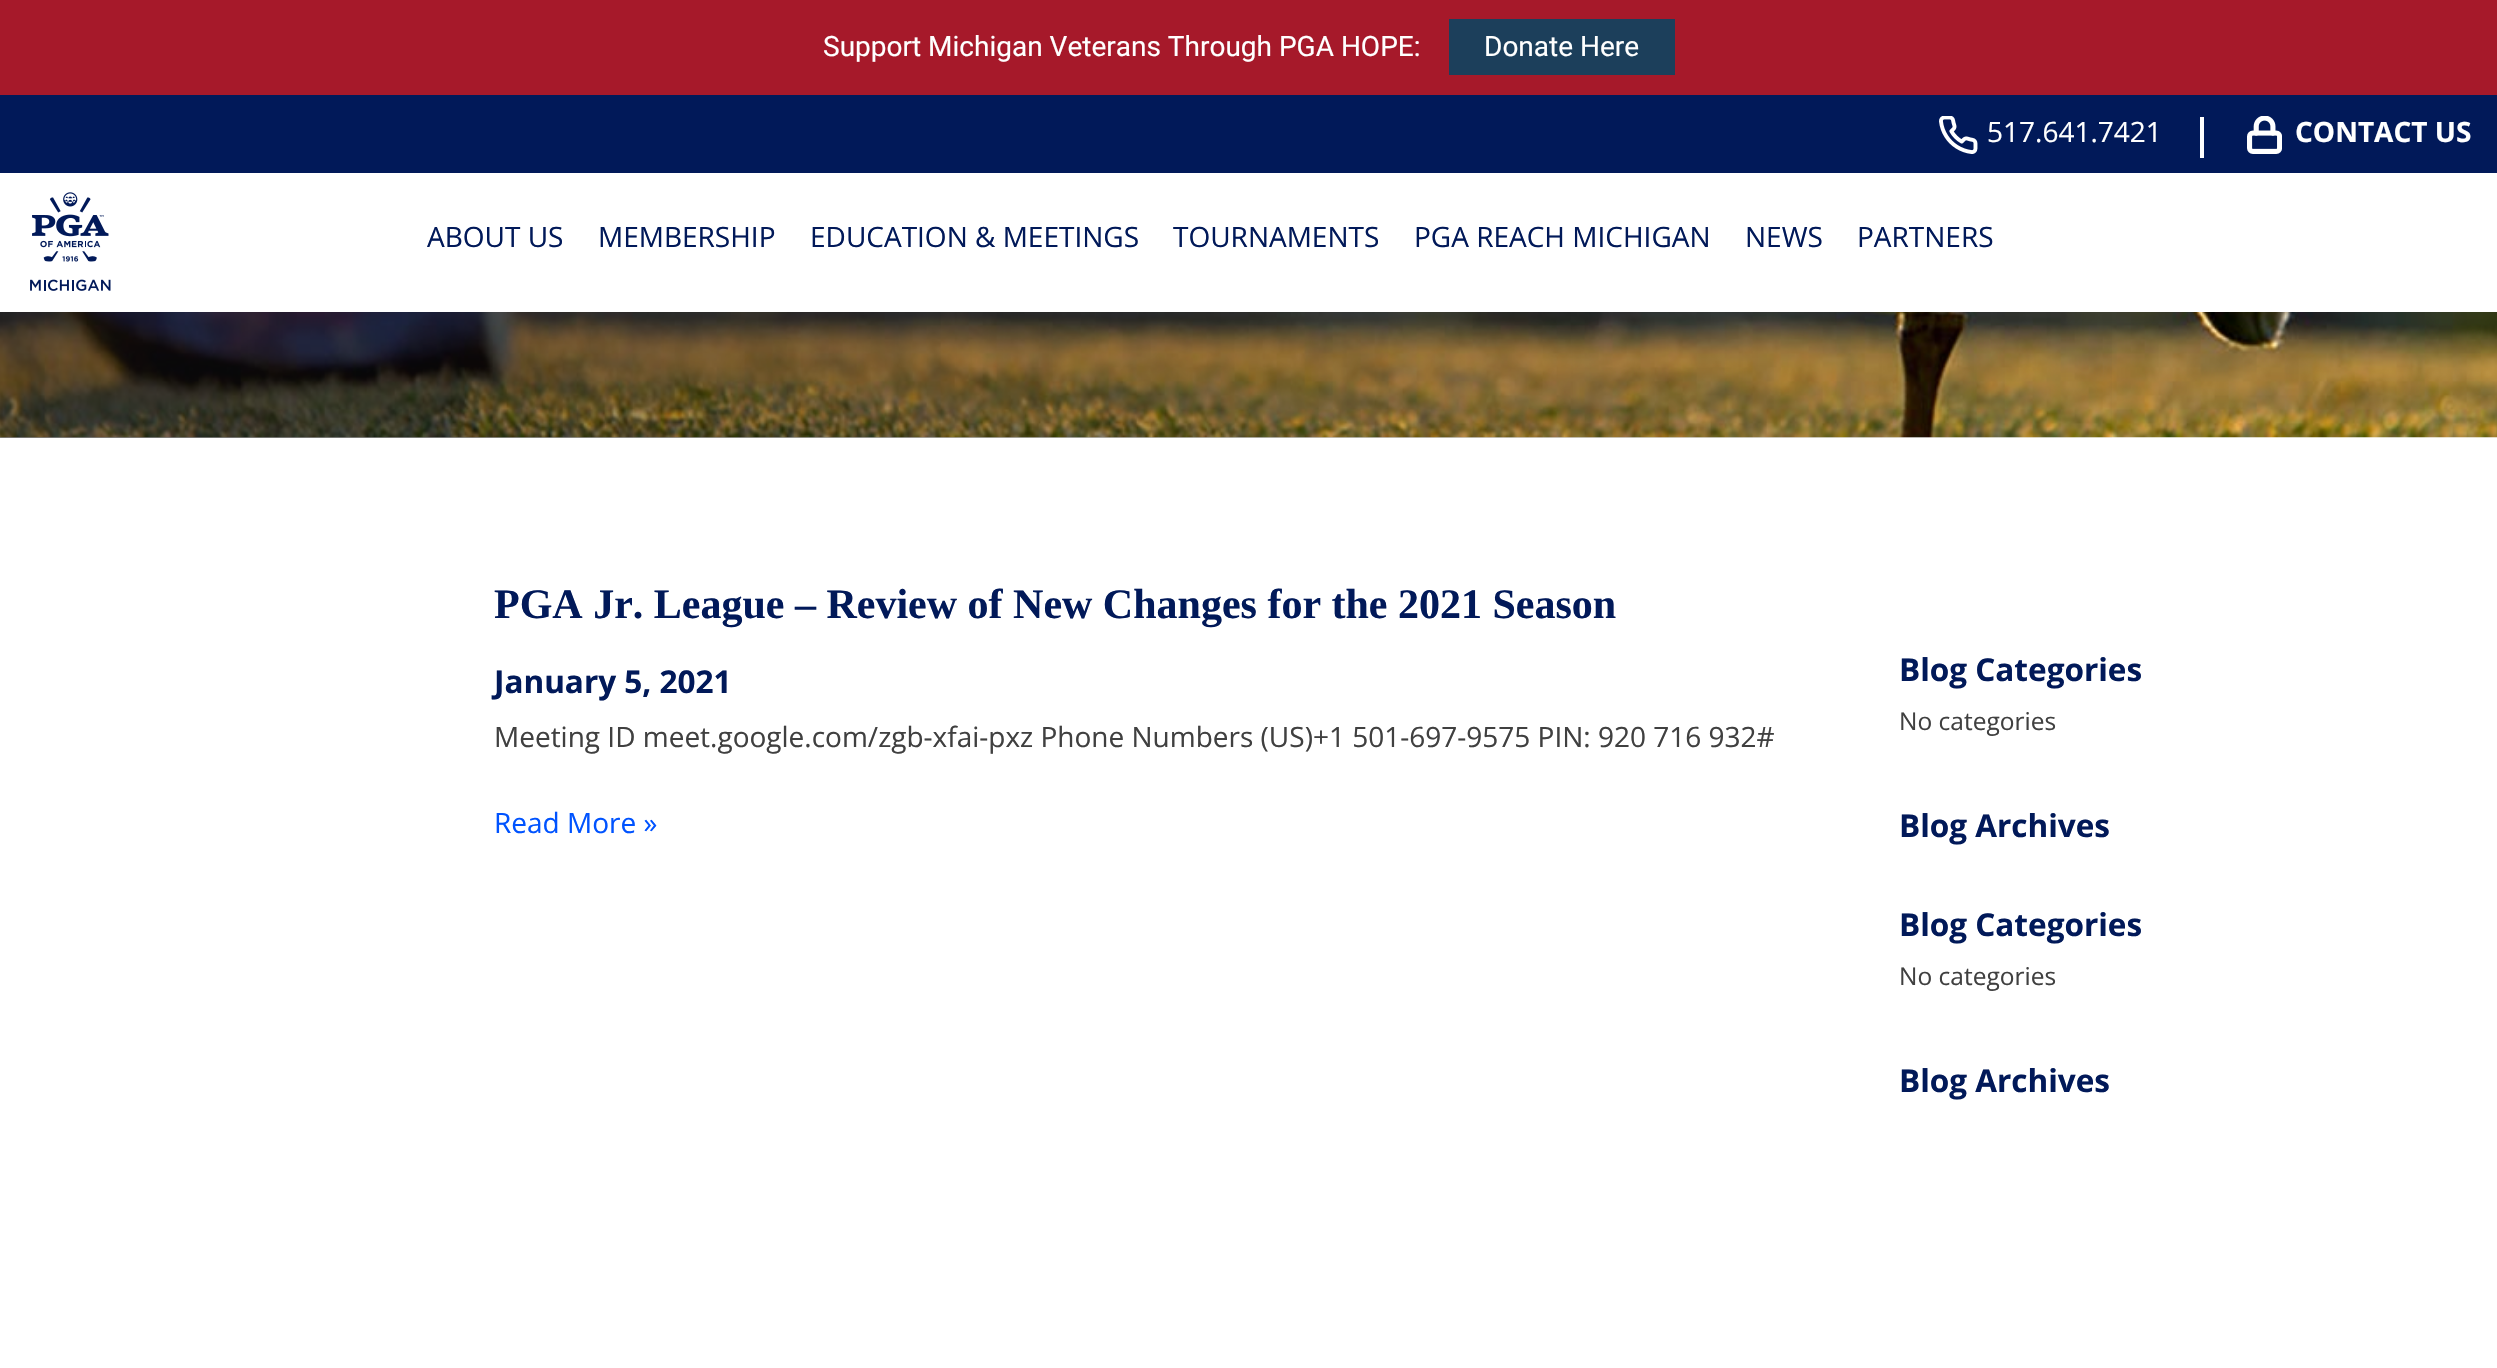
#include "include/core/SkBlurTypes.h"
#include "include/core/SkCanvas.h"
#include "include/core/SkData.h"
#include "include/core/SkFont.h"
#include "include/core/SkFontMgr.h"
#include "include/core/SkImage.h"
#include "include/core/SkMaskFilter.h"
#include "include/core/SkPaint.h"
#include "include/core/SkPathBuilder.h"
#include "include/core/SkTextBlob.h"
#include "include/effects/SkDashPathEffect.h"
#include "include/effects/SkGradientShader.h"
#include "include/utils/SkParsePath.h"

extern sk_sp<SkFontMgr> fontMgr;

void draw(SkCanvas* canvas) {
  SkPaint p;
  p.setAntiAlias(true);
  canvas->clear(SK_ColorWHITE);
  p.setColor(SkColorSetRGB(166, 25, 42));
  canvas->drawRect(SkRect::MakeLTRB(0, 0, 2497, 95), p);
  p.setColor(SkColorSetRGB(28, 63, 91));
  canvas->drawRect(SkRect::MakeLTRB(1449, 19, 1675, 75), p);
  p.setColor(SkColorSetRGB(1, 25, 89));
  canvas->drawRect(SkRect::MakeLTRB(0, 95, 2497, 173), p);
  canvas->drawImageRect(SkImages::DeferredFromEncodedData(SkData::MakeFromFileName("images/1.png")), SkRect::MakeLTRB(1939, 116, 1978, 154), SkSamplingOptions());
  p.setColor(SK_ColorWHITE);
  canvas->drawRect(SkRect::MakeLTRB(2200, 117, 2204, 158), p);
  canvas->drawImageRect(SkImages::DeferredFromEncodedData(SkData::MakeFromFileName("images/2.png")), SkRect::MakeLTRB(2247, 116, 2282, 154), SkSamplingOptions());
  canvas->drawImageRect(SkImages::DeferredFromEncodedData(SkData::MakeFromFileName("images/3.png")), SkRect::MakeLTRB(30, 192, 111, 291), SkSamplingOptions());
  p.setColor(SkColorSetRGB(250, 250, 250));
  canvas->drawRect(SkRect::MakeLTRB(0, 437, 2497, 438), p);
  canvas->drawImageRect(SkImages::DeferredFromEncodedData(SkData::MakeFromFileName("images/4.png")), SkRect::MakeLTRB(0, 312, 2497, 438), SkSamplingOptions());
  {
    const SkColor colors[] = {SkColorSetARGB(128, 16, 16, 17), SkColorSetARGB(0, 16, 16, 17), SkColorSetARGB(0, 16, 16, 17)};
    const float stops[] = {0.09f, 0.88f, 1};
    const SkPoint ends[] = {{0, 130}, {2497, 129}};
    p.setShader(SkGradientShader::MakeLinear(ends, colors, stops, 3, SkTileMode::kClamp));
    p.setAlpha(255);
  }
  canvas->drawRect(SkRect::MakeLTRB(0, 312, 2112, 438), p);
  SkFont font1(fontMgr->matchFamilyStyle("Roboto", SkFontStyle::Normal()), 28);
  font1.setSubpixel(true);
  p.setShader(nullptr);
  p.setColor(SK_ColorWHITE);
  canvas->drawString("Support Michigan Veterans Through PGA HOPE:", 823, 56, font1, p);
  canvas->drawString("Donate Here", 1484, 56, font1, p);
  SkFont font2(fontMgr->matchFamilyStyle("Open Sans", SkFontStyle::Normal()), 28);
  font2.setSubpixel(true);
  canvas->drawString("517.641.7421", 1987, 142, font2, p);
  SkFont font3(fontMgr->matchFamilyStyle("Open Sans", SkFontStyle::Bold()), 28);
  font3.setSubpixel(true);
  canvas->drawString("CONTACT US", 2295, 142, font3, p);
  p.setColor(SkColorSetRGB(1, 25, 89));
  canvas->drawString("ABOUT US", 427, 247, font2, p);
  canvas->drawString("MEMBERSHIP", 598, 247, font2, p);
  canvas->drawString("EDUCATION & MEETINGS", 810, 247, font2, p);
  canvas->drawString("TOURNAMENTS", 1173, 247, font2, p);
  canvas->drawString("PGA REACH MICHIGAN", 1414, 247, font2, p);
  canvas->drawString("NEWS", 1745, 247, font2, p);
  canvas->drawString("PARTNERS", 1857, 247, font2, p);
  SkFont font4(fontMgr->matchFamilyStyle("Liberation Serif", SkFontStyle::Bold()), 42);
  font4.setSubpixel(true);
  canvas->drawString("PGA Jr. League – Review of New Changes for the 2021 Season", 494, 618, font4, p);
  SkFont font5(fontMgr->matchFamilyStyle("Open Sans", SkFontStyle::Bold()), 31.5f);
  font5.setSubpixel(true);
  canvas->drawString("January 5, 2021", 494, 693, font5, p);
  p.setColor(SkColorSetRGB(64, 64, 64));
  canvas->drawString("Meeting ID meet.google.com/zgb-xfai-pxz Phone Numbers (US)+1 501-697-9575 PIN: 920 716 932#", 494, 747, font2, p);
  p.setColor(SkColorSetRGB(0, 83, 255));
  canvas->drawString("Read More »", 494, 833, font2, p);
  p.setColor(SkColorSetRGB(1, 25, 89));
  canvas->drawString("Blog Categories", 1899, 681, font5, p);
  SkFont font6(fontMgr->matchFamilyStyle("Open Sans", SkFontStyle::Normal()), 24.5f);
  font6.setSubpixel(true);
  p.setColor(SkColorSetRGB(64, 64, 64));
  canvas->drawString("No categories", 1899, 730, font6, p);
  p.setColor(SkColorSetRGB(1, 25, 89));
  canvas->drawString("Blog Archives", 1899, 837, font5, p);
  canvas->drawString("Blog Categories", 1899, 936, font5, p);
  p.setColor(SkColorSetRGB(64, 64, 64));
  canvas->drawString("No categories", 1899, 985, font6, p);
  p.setColor(SkColorSetRGB(1, 25, 89));
  canvas->drawString("Blog Archives", 1899, 1092, font5, p);
}
